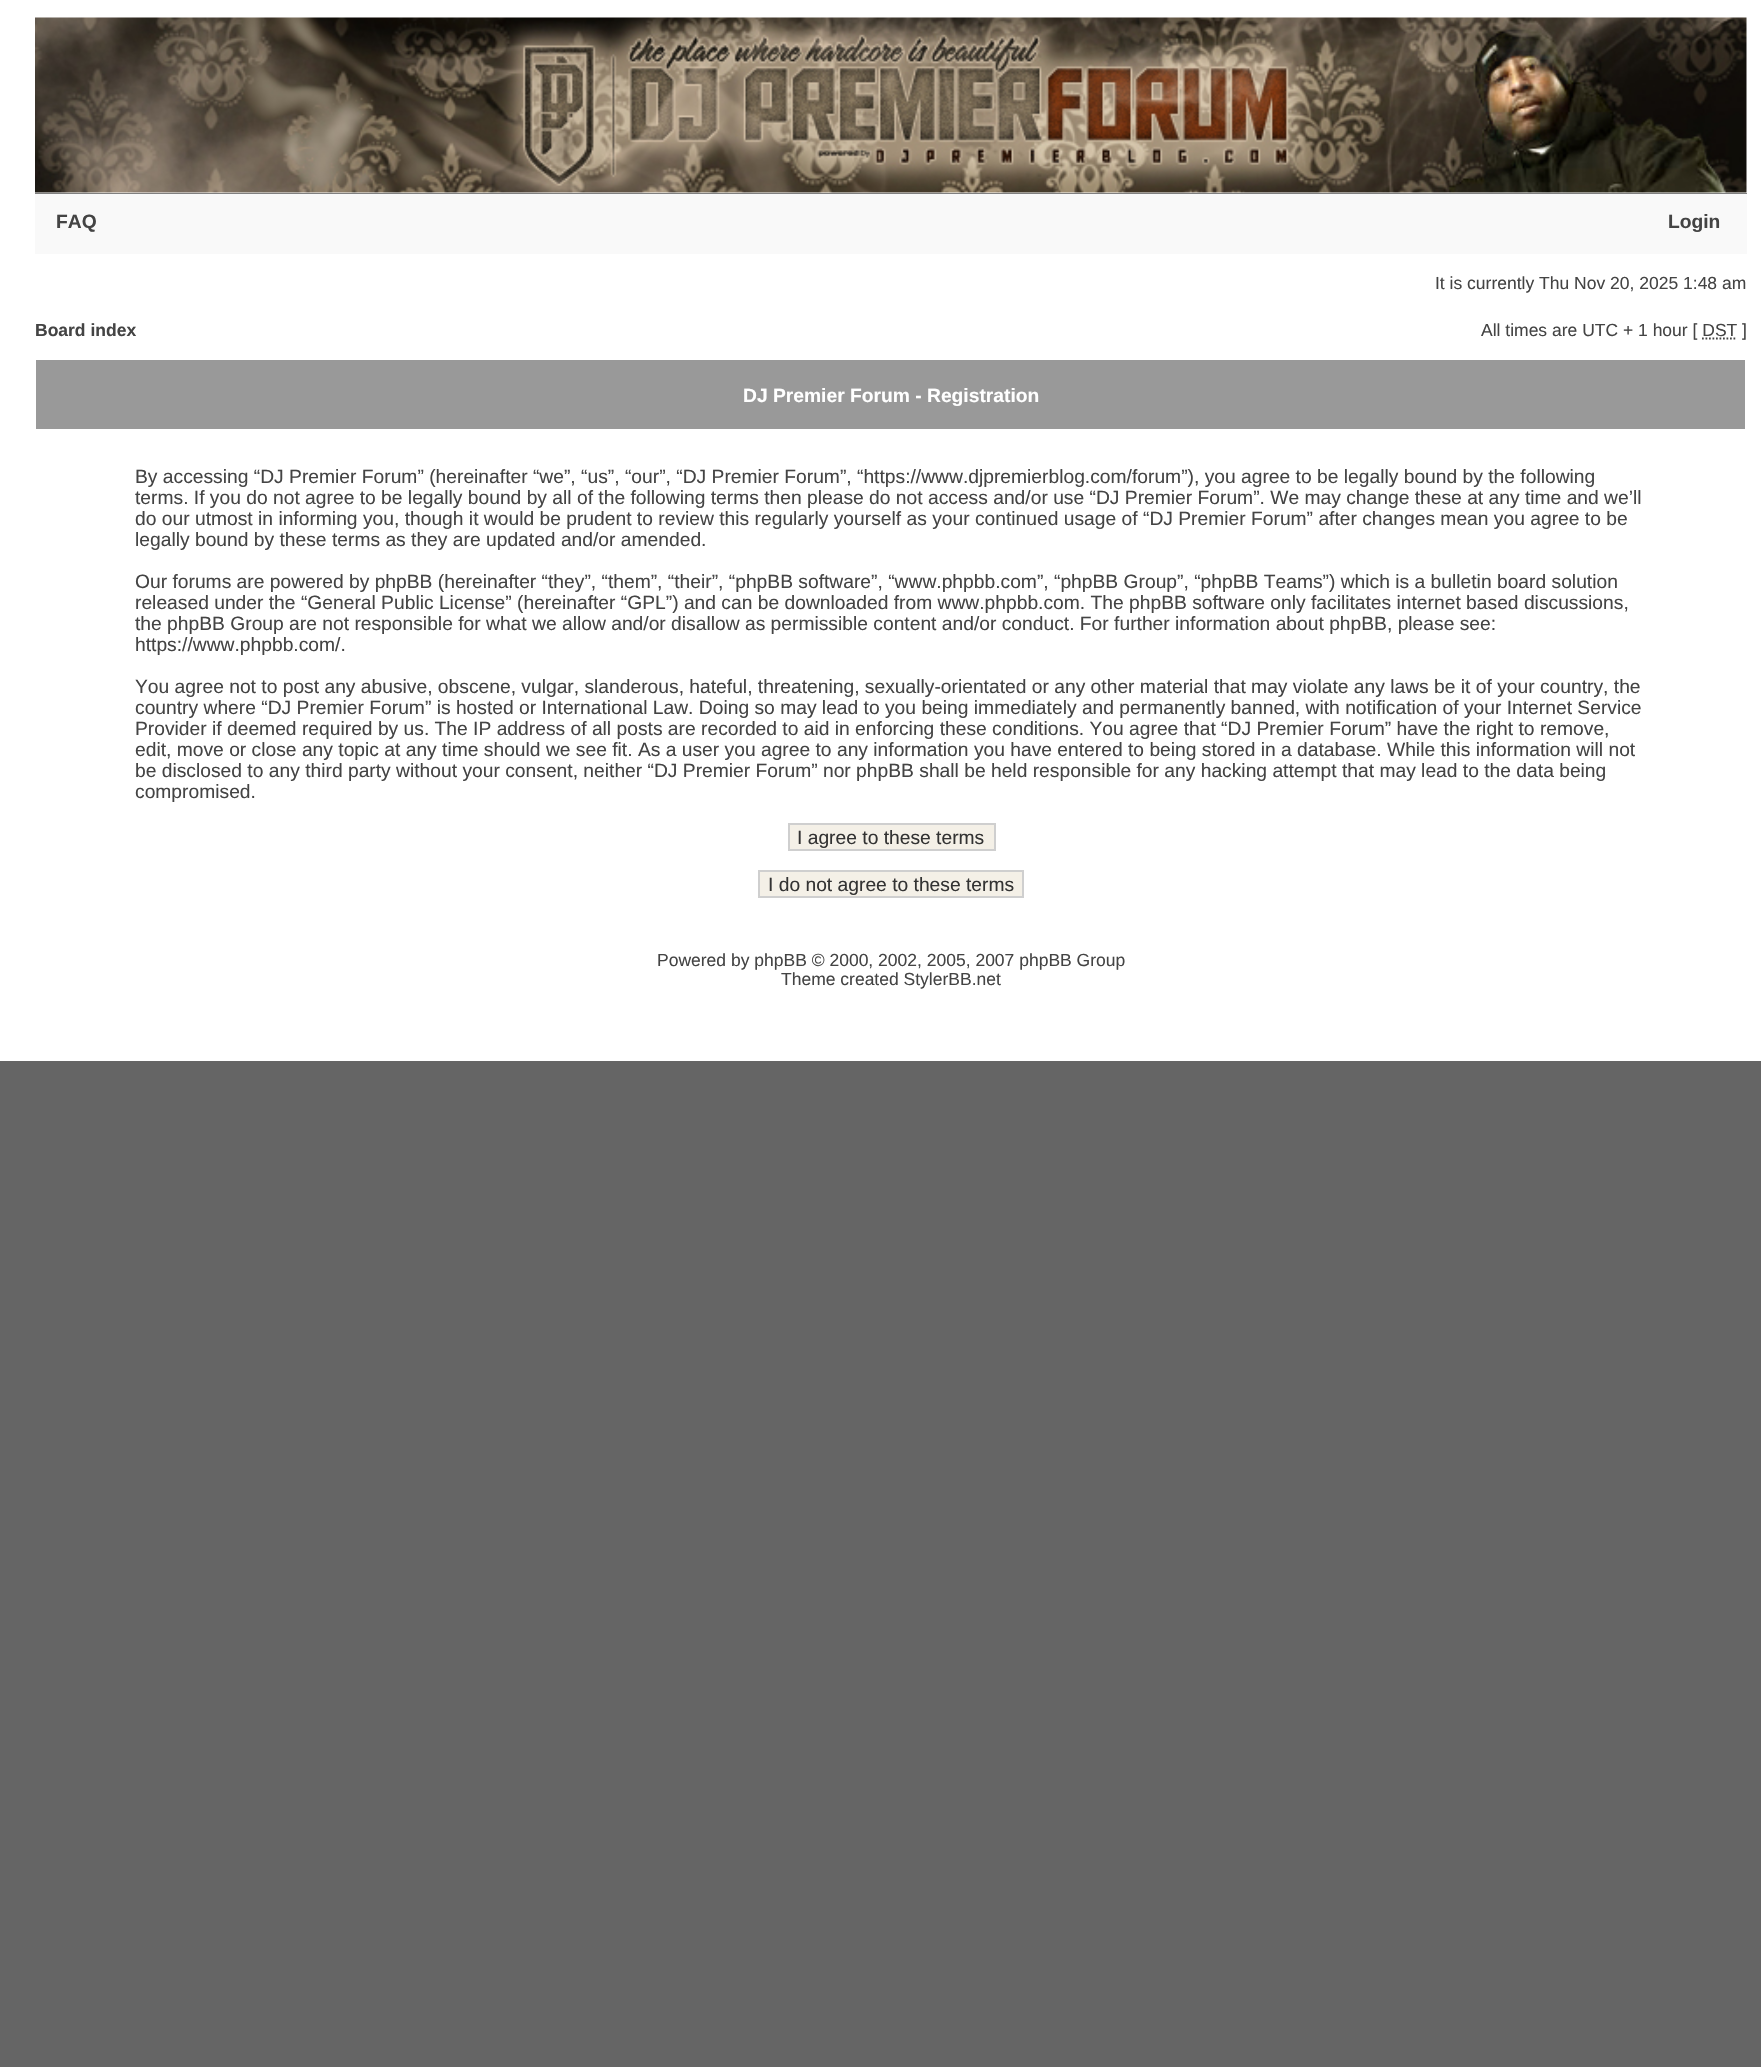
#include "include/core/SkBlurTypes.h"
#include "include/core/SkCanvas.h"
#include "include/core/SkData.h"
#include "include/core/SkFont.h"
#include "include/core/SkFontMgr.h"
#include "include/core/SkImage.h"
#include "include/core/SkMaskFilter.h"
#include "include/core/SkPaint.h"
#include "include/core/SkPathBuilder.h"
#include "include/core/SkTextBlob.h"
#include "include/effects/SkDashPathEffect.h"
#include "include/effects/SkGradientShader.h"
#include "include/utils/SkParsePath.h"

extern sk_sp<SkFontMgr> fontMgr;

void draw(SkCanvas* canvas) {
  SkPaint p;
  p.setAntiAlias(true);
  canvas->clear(SkColorSetRGB(101, 101, 101));
  p.setColor(SK_ColorWHITE);
  canvas->drawRect(SkRect::MakeLTRB(0, 0, 1761, 1061), p);
  p.setColor(SkColorSetRGB(128, 128, 128));
  canvas->drawRect(SkRect::MakeLTRB(35, 193, 1747, 194), p);
  canvas->drawImageRect(SkImages::DeferredFromEncodedData(SkData::MakeFromFileName("images/1.png")), SkRect::MakeLTRB(35, 17, 1747, 193), SkSamplingOptions());
  p.setColor(SkColorSetRGB(249, 249, 249));
  canvas->drawRect(SkRect::MakeLTRB(35, 194, 1747, 254), p);
  p.setStyle(SkPaint::kStroke_Style);
  p.setStrokeWidth(1.8f);
  p.setColor(SkColorSetRGB(68, 68, 68));
  p.setPathEffect(SkDashPathEffect::Make({{1.75f, 1.75f}}, 0));
  canvas->drawPath(SkPathBuilder().moveTo(1702, 338.5f).lineTo(1737, 338.5f).detach(), p);
  p.setPathEffect(nullptr);
  p.setStyle(SkPaint::kFill_Style);
  p.setColor(SkColorSetRGB(153, 153, 153));
  canvas->drawRect(SkRect::MakeLTRB(36, 360, 1745, 429), p);
  p.setColor(SkColorSetRGB(244, 240, 231));
  canvas->drawRect(SkRect::MakeLTRB(789, 824, 995, 850), p);
  p.setStyle(SkPaint::kStroke_Style);
  p.setStrokeWidth(2);
  p.setColor(SkColorSetRGB(207, 207, 207));
  canvas->drawRect(SkRect::MakeLTRB(789, 824, 995, 850), p);
  p.setStyle(SkPaint::kFill_Style);
  p.setColor(SkColorSetRGB(244, 240, 231));
  canvas->drawRect(SkRect::MakeLTRB(759, 871, 1023, 897), p);
  p.setStyle(SkPaint::kStroke_Style);
  p.setColor(SkColorSetRGB(207, 207, 207));
  canvas->drawRect(SkRect::MakeLTRB(759, 871, 1023, 897), p);
  SkFont font1(fontMgr->matchFamilyStyle("Liberation Sans", SkFontStyle::Bold()), 19.25f);
  font1.setSubpixel(true);
  p.setStyle(SkPaint::kFill_Style);
  p.setColor(SkColorSetRGB(68, 68, 68));
  canvas->drawString("FAQ", 56, 228, font1, p);
  canvas->drawString("Login", 1668, 228, font1, p);
  SkFont font2(fontMgr->matchFamilyStyle("Liberation Sans", SkFontStyle::Normal()), 17.5f);
  font2.setSubpixel(true);
  canvas->drawString("It is currently Thu Nov 20, 2025 1:48 am", 1435, 289, font2, p);
  SkFont font3(fontMgr->matchFamilyStyle("Liberation Sans", SkFontStyle::Bold()), 17.5f);
  font3.setSubpixel(true);
  canvas->drawString("Board index", 35, 336, font3, p);
  canvas->drawString("All times are UTC + 1 hour [ DST ]", 1481, 336, font2, p);
  p.setColor(SK_ColorWHITE);
  canvas->drawString("DJ Premier Forum - Registration", 743, 402, font1, p);
  SkFont font4(fontMgr->matchFamilyStyle("Liberation Sans", SkFontStyle::Normal()), 19.25f);
  font4.setSubpixel(true);
  p.setColor(SkColorSetRGB(68, 68, 68));
  canvas->drawString("By accessing “DJ Premier Forum” (hereinafter “we”, “us”, “our”, “DJ Premier Forum”, “https://www.djpremierblog.com/forum”), you agree to be legally bound by the following", 135, 483, font4, p);
  canvas->drawString("terms. If you do not agree to be legally bound by all of the following terms then please do not access and/or use “DJ Premier Forum”. We may change these at any time and we’ll", 135, 504, font4, p);
  canvas->drawString("do our utmost in informing you, though it would be prudent to review this regularly yourself as your continued usage of “DJ Premier Forum” after changes mean you agree to be", 135, 525, font4, p);
  canvas->drawString("legally bound by these terms as they are updated and/or amended.", 135, 546, font4, p);
  canvas->drawString("Our forums are powered by phpBB (hereinafter “they”, “them”, “their”, “phpBB software”, “www.phpbb.com”, “phpBB Group”, “phpBB Teams”) which is a bulletin board solution", 135, 588, font4, p);
  canvas->drawString("released under the “General Public License” (hereinafter “GPL”) and can be downloaded from www.phpbb.com. The phpBB software only facilitates internet based discussions,", 135, 609, font4, p);
  canvas->drawString("the phpBB Group are not responsible for what we allow and/or disallow as permissible content and/or conduct. For further information about phpBB, please see:", 135, 630, font4, p);
  canvas->drawString("https://www.phpbb.com/.", 135, 651, font4, p);
  canvas->drawString("You agree not to post any abusive, obscene, vulgar, slanderous, hateful, threatening, sexually-orientated or any other material that may violate any laws be it of your country, the", 135, 693, font4, p);
  canvas->drawString("country where “DJ Premier Forum” is hosted or International Law. Doing so may lead to you being immediately and permanently banned, with notification of your Internet Service", 135, 714, font4, p);
  canvas->drawString("Provider if deemed required by us. The IP address of all posts are recorded to aid in enforcing these conditions. You agree that “DJ Premier Forum” have the right to remove,", 135, 735, font4, p);
  canvas->drawString("edit, move or close any topic at any time should we see fit. As a user you agree to any information you have entered to being stored in a database. While this information will not", 135, 756, font4, p);
  canvas->drawString("be disclosed to any third party without your consent, neither “DJ Premier Forum” nor phpBB shall be held responsible for any hacking attempt that may lead to the data being", 135, 777, font4, p);
  canvas->drawString("compromised.", 135, 798, font4, p);
  p.setColor(SkColorSetRGB(51, 51, 51));
  canvas->drawString("I agree to these terms", 797, 844, font4, p);
  canvas->drawString("I do not agree to these terms", 768, 891, font4, p);
  p.setColor(SkColorSetRGB(68, 68, 68));
  canvas->drawString("Powered by phpBB © 2000, 2002, 2005, 2007 phpBB Group", 657, 966, font2, p);
  canvas->drawString("Theme created StylerBB.net", 781, 985, font2, p);
}
